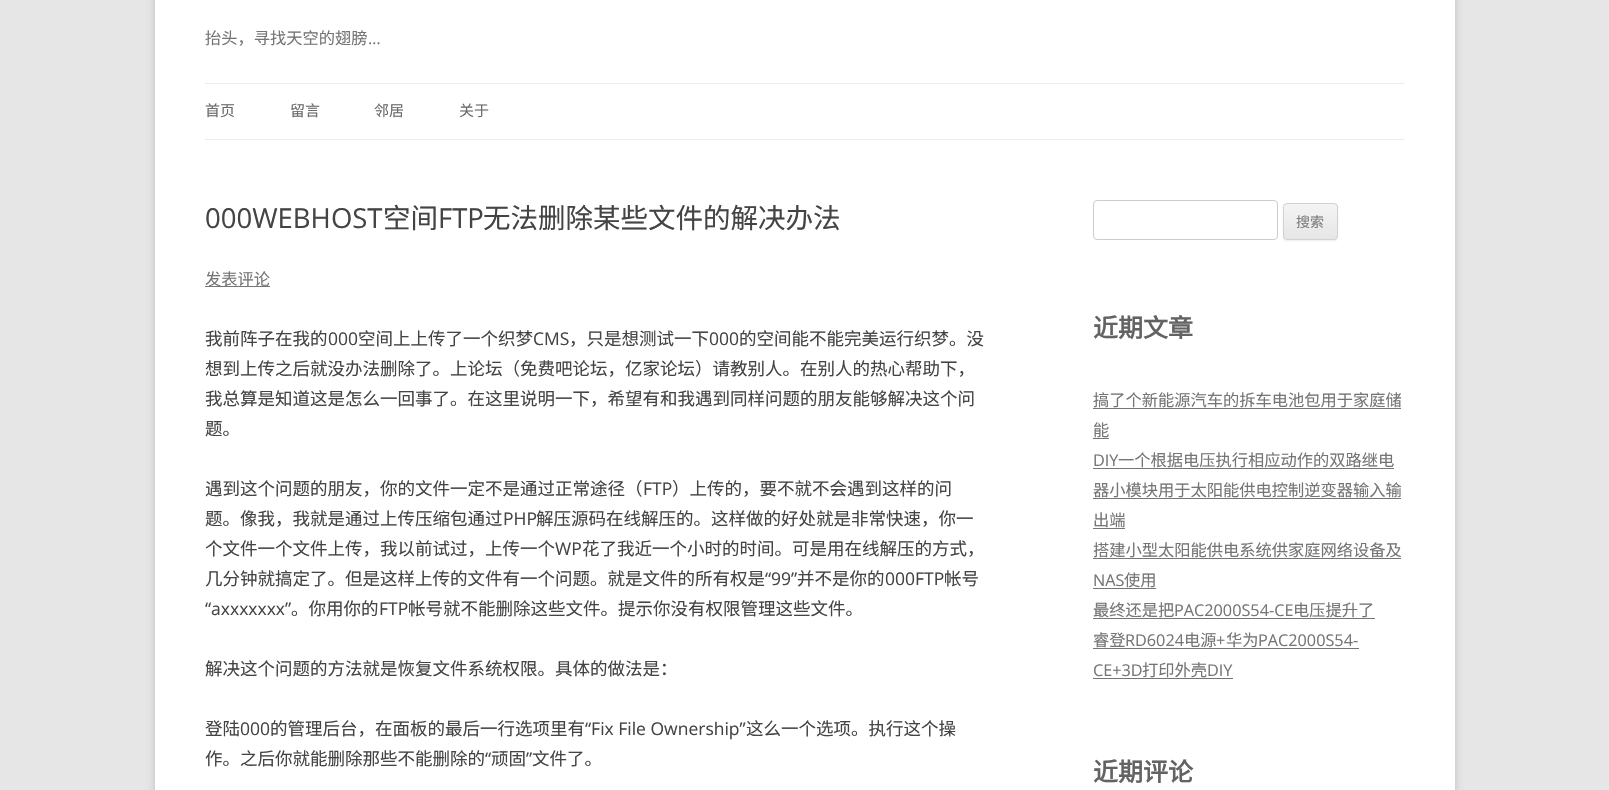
#include "include/core/SkBlurTypes.h"
#include "include/core/SkCanvas.h"
#include "include/core/SkData.h"
#include "include/core/SkFont.h"
#include "include/core/SkFontMgr.h"
#include "include/core/SkImage.h"
#include "include/core/SkMaskFilter.h"
#include "include/core/SkPaint.h"
#include "include/core/SkPathBuilder.h"
#include "include/core/SkTextBlob.h"
#include "include/effects/SkDashPathEffect.h"
#include "include/effects/SkGradientShader.h"
#include "include/utils/SkParsePath.h"

extern sk_sp<SkFontMgr> fontMgr;

void draw(SkCanvas* canvas) {
  SkPaint p;
  p.setAntiAlias(true);
  canvas->clear(SkColorSetRGB(230, 230, 230));
  p.setColor(SkColorSetARGB(77, 100, 100, 100));
  p.setMaskFilter(SkMaskFilter::MakeBlur(kNormal_SkBlurStyle, 4));
  canvas->drawRect(SkRect::MakeLTRB(155, -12, 1455, 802), p);
  p.setMaskFilter(nullptr);
  p.setColor(SK_ColorWHITE);
  canvas->drawRect(SkRect::MakeLTRB(155, 0, 1455, 790), p);
  p.setColor(SkColorSetRGB(237, 237, 237));
  canvas->drawRect(SkRect::MakeLTRB(205, 83, 1405, 84), p);
  canvas->drawRect(SkRect::MakeLTRB(205, 139, 1405, 140), p);
  p.setColor(SkColorSetRGB(117, 117, 117));
  canvas->drawRect(SkRect::MakeLTRB(205, 286, 270, 287), p);
  p.setStyle(SkPaint::kStroke_Style);
  p.setStrokeWidth(1);
  p.setColor(SkColorSetRGB(204, 204, 204));
  canvas->drawRoundRect(SkRect::MakeLTRB(1093.5f, 200.5f, 1277.5f, 239.5f), 3.5f, 3.5f, p);
  p.setStyle(SkPaint::kFill_Style);
  p.setColor(SkColorSetARGB(26, 64, 64, 64));
  p.setMaskFilter(SkMaskFilter::MakeBlur(kNormal_SkBlurStyle, 1));
  canvas->drawRoundRect(SkRect::MakeLTRB(1283, 204, 1338, 241), 4, 4, p);
  p.setMaskFilter(nullptr);
  canvas->save();
  canvas->clipPath(SkPathBuilder().moveTo(1287, 203).lineTo(1334, 203).cubicTo(1336, 203, 1338, 205, 1338, 207).lineTo(1338, 236).cubicTo(1338, 238, 1336, 240, 1334, 240).lineTo(1287, 240).cubicTo(1285, 240, 1283, 238, 1283, 236).lineTo(1283, 207).cubicTo(1283, 205, 1285, 203, 1287, 203).close().detach(), true);
  {
    const SkColor colors[] = {SkColorSetRGB(244, 244, 244), SkColorSetRGB(230, 230, 230)};
    const float stops[] = {0, 1};
    const SkPoint ends[] = {{1310, 204}, {1310, 239}};
    p.setShader(SkGradientShader::MakeLinear(ends, colors, stops, 2, SkTileMode::kClamp));
    p.setAlpha(255);
  }
  canvas->drawRect(SkRect::MakeLTRB(1283, 204, 1338, 239), p);
  canvas->restore();
  p.setStyle(SkPaint::kStroke_Style);
  p.setShader(nullptr);
  p.setColor(SkColorSetRGB(210, 210, 210));
  canvas->drawRoundRect(SkRect::MakeLTRB(1283.5f, 203.5f, 1337.5f, 239.5f), 3.5f, 3.5f, p);
  p.setStyle(SkPaint::kFill_Style);
  p.setColor(SkColorSetRGB(117, 117, 117));
  canvas->drawRect(SkRect::MakeLTRB(1093, 408, 1401, 409), p);
  canvas->drawRect(SkRect::MakeLTRB(1093, 438, 1109, 439), p);
  canvas->drawRect(SkRect::MakeLTRB(1093, 468, 1394, 469), p);
  canvas->drawRect(SkRect::MakeLTRB(1093, 498, 1401, 499), p);
  canvas->drawRect(SkRect::MakeLTRB(1093, 528, 1125, 529), p);
  canvas->drawRect(SkRect::MakeLTRB(1093, 558, 1401, 559), p);
  canvas->drawRect(SkRect::MakeLTRB(1093, 588, 1156, 589), p);
  canvas->drawRect(SkRect::MakeLTRB(1093, 618, 1375, 619), p);
  canvas->drawRect(SkRect::MakeLTRB(1093, 648, 1359, 649), p);
  canvas->drawRect(SkRect::MakeLTRB(1093, 678, 1233, 679), p);
  SkFont font1(fontMgr->matchFamilyStyle("Noto Sans CJK SC", SkFontStyle::Normal()), 16.25f);
  font1.setSubpixel(true);
  canvas->drawString("抬头，寻找天空的翅膀", 205, 44, font1, p);
  SkFont font2(fontMgr->matchFamilyStyle("Open Sans", SkFontStyle::Normal()), 16.25f);
  font2.setSubpixel(true);
  canvas->drawString("…", 368, 44, font2, p);
  SkFont font3(fontMgr->matchFamilyStyle("Noto Sans CJK SC", SkFontStyle::Normal()), 15);
  font3.setSubpixel(true);
  p.setColor(SkColorSetRGB(106, 106, 106));
  canvas->drawString("首页", 205, 116, font3, p);
  canvas->drawString("留言", 290, 116, font3, p);
  canvas->drawString("邻居", 374, 116, font3, p);
  canvas->drawString("关于", 459, 116, font3, p);
  SkFont font4(fontMgr->matchFamilyStyle("Open Sans", SkFontStyle::Normal()), 27.5f);
  font4.setSubpixel(true);
  p.setColor(SkColorSetRGB(68, 68, 68));
  canvas->drawString("000WEBHOST", 205, 228, font4, p);
  SkFont font5(fontMgr->matchFamilyStyle("Noto Sans CJK SC", SkFontStyle::Normal()), 27.5f);
  font5.setSubpixel(true);
  canvas->drawString("空间", 383, 228, font5, p);
  canvas->drawString("FTP", 438, 228, font4, p);
  canvas->drawString("无法删除某些文件的解决办法", 483, 228, font5, p);
  p.setColor(SkColorSetRGB(117, 117, 117));
  canvas->drawString("发表评论", 205, 285, font1, p);
  SkFont font6(fontMgr->matchFamilyStyle("Noto Sans CJK SC", SkFontStyle::Normal()), 17.5f);
  font6.setSubpixel(true);
  p.setColor(SkColorSetRGB(68, 68, 68));
  canvas->drawString("我前阵子在我的", 205, 345, font6, p);
  SkFont font7(fontMgr->matchFamilyStyle("Open Sans", SkFontStyle::Normal()), 17.5f);
  font7.setSubpixel(true);
  canvas->drawString("000", 328, 345, font7, p);
  canvas->drawString("空间上上传了一个织梦", 358, 345, font6, p);
  canvas->drawString("CMS", 533, 345, font7, p);
  canvas->drawString("，只是想测试一下", 569, 345, font6, p);
  canvas->drawString("000", 709, 345, font7, p);
  canvas->drawString("的空间能不能完美运行织梦。没", 739, 345, font6, p);
  canvas->drawString("想到上传之后就没办法删除了。上论坛（免费吧论坛，亿家论坛）请教别人。在别人的热心帮助下，", 205, 375, font6, p);
  canvas->drawString("我总算是知道这是怎么一回事了。在这里说明一下，希望有和我遇到同样问题的朋友能够解决这个问", 205, 405, font6, p);
  canvas->drawString("题。", 205, 435, font6, p);
  canvas->drawString("遇到这个问题的朋友，你的文件一定不是通过正常途径（", 205, 495, font6, p);
  canvas->drawString("FTP", 643, 495, font7, p);
  canvas->drawString("）上传的，要不就不会遇到这样的问", 672, 495, font6, p);
  canvas->drawString("题。像我，我就是通过上传压缩包通过", 205, 525, font6, p);
  canvas->drawString("PHP", 503, 525, font7, p);
  canvas->drawString("解压源码在线解压的。这样做的好处就是非常快速，你一", 536, 525, font6, p);
  canvas->drawString("个文件一个文件上传，我以前试过，上传一个", 205, 555, font6, p);
  canvas->drawString("WP", 555, 555, font7, p);
  canvas->drawString("花了我近一个小时的时间。可是用在线解压的方式，", 582, 555, font6, p);
  canvas->drawString("几分钟就搞定了。但是这样上传的文件有一个问题。就是文件的所有权是", 205, 585, font6, p);
  canvas->drawString("“99”", 765, 585, font7, p);
  canvas->drawString("并不是你的", 797, 585, font6, p);
  canvas->drawString("000FTP", 885, 585, font7, p);
  canvas->drawString("帐号", 944, 585, font6, p);
  canvas->drawString("“axxxxxxx”", 205, 615, font7, p);
  canvas->drawString("。你用你的", 291, 615, font6, p);
  canvas->drawString("FTP", 379, 615, font7, p);
  canvas->drawString("帐号就不能删除这些文件。提示你没有权限管理这些文件。", 408, 615, font6, p);
  canvas->drawString("解决这个问题的方法就是恢复文件系统权限。具体的做法是：", 205, 675, font6, p);
  canvas->drawString("登陆", 205, 735, font6, p);
  canvas->drawString("000", 240, 735, font7, p);
  canvas->drawString("的管理后台，在面板的最后一行选项里有", 270, 735, font6, p);
  canvas->drawString("“Fix File Ownership”", 585, 735, font7, p);
  canvas->drawString("这么一个选项。执行这个操", 746, 735, font6, p);
  canvas->drawString("作。之后你就能删除那些不能删除的", 205, 765, font6, p);
  canvas->drawString("“", 485, 765, font7, p);
  canvas->drawString("顽固", 491, 765, font6, p);
  canvas->drawString("”", 526, 765, font7, p);
  canvas->drawString("文件了。", 532, 765, font6, p);
  SkFont font8(fontMgr->matchFamilyStyle("Noto Sans CJK SC", SkFontStyle::Normal()), 14);
  font8.setSubpixel(true);
  p.setColor(SkColorSetRGB(124, 124, 124));
  canvas->drawString("搜索", 1296, 227, font8, p);
  SkFont font9(fontMgr->matchFamilyStyle("Noto Sans CJK SC", SkFontStyle::Bold()), 25);
  font9.setSubpixel(true);
  p.setColor(SkColorSetRGB(99, 99, 99));
  canvas->drawString("近期文章", 1093, 337, font9, p);
  p.setColor(SkColorSetRGB(117, 117, 117));
  canvas->drawString("搞了个新能源汽车的拆车电池包用于家庭储", 1093, 406, font1, p);
  canvas->drawString("能", 1093, 436, font1, p);
  canvas->drawString("DIY", 1093, 466, font2, p);
  canvas->drawString("一个根据电压执行相应动作的双路继电", 1118, 466, font1, p);
  canvas->drawString("器小模块用于太阳能供电控制逆变器输入输", 1093, 496, font1, p);
  canvas->drawString("出端", 1093, 526, font1, p);
  canvas->drawString("搭建小型太阳能供电系统供家庭网络设备及", 1093, 556, font1, p);
  canvas->drawString("NAS", 1093, 586, font2, p);
  canvas->drawString("使用", 1124, 586, font1, p);
  canvas->drawString("最终还是把", 1093, 616, font1, p);
  canvas->drawString("PAC2000S54-CE", 1174, 616, font2, p);
  canvas->drawString("电压提升了", 1293, 616, font1, p);
  canvas->drawString("睿登", 1093, 646, font1, p);
  canvas->drawString("RD6024", 1125, 646, font2, p);
  canvas->drawString("电源", 1184, 646, font1, p);
  canvas->drawString("+", 1216, 646, font2, p);
  canvas->drawString("华为", 1226, 646, font1, p);
  canvas->drawString("PAC2000S54-", 1258, 646, font2, p);
  canvas->drawString("CE+3D", 1093, 676, font2, p);
  canvas->drawString("打印外壳", 1142, 676, font1, p);
  canvas->drawString("DIY", 1207, 676, font2, p);
  p.setColor(SkColorSetRGB(99, 99, 99));
  canvas->drawString("近期评论", 1093, 781, font9, p);
}
